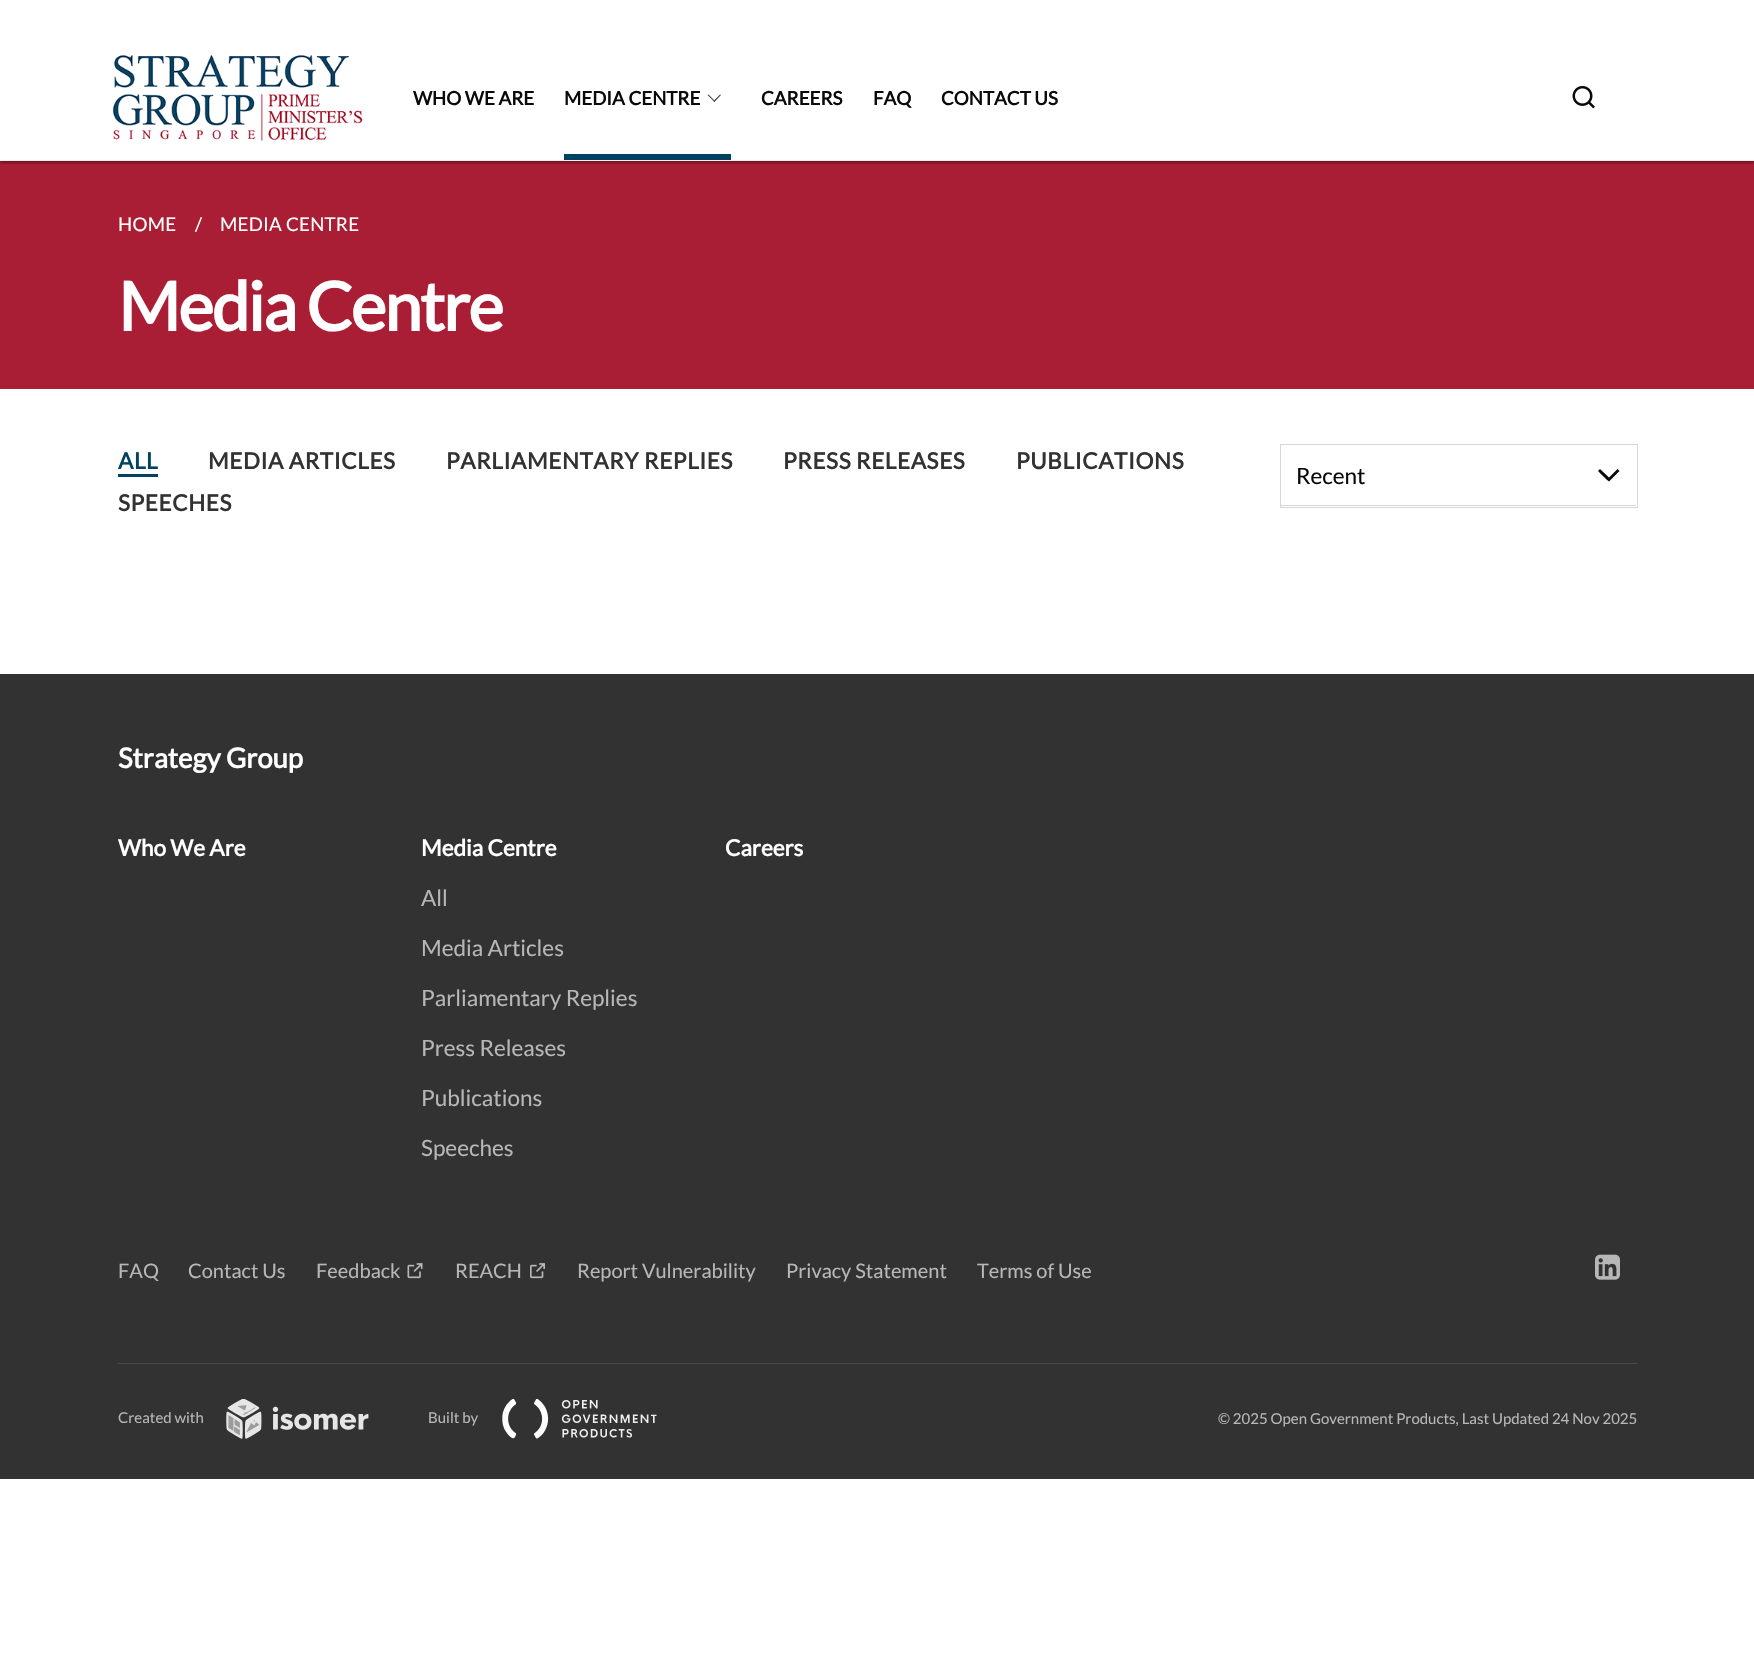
#include "include/core/SkBlurTypes.h"
#include "include/core/SkCanvas.h"
#include "include/core/SkData.h"
#include "include/core/SkFont.h"
#include "include/core/SkFontMgr.h"
#include "include/core/SkImage.h"
#include "include/core/SkMaskFilter.h"
#include "include/core/SkPaint.h"
#include "include/core/SkPathBuilder.h"
#include "include/core/SkTextBlob.h"
#include "include/effects/SkDashPathEffect.h"
#include "include/effects/SkGradientShader.h"
#include "include/utils/SkParsePath.h"

extern sk_sp<SkFontMgr> fontMgr;

void draw(SkCanvas* canvas) {
  SkPaint p;
  p.setAntiAlias(true);
  auto spacedText = [&](const char* s, float x, float y, const SkFont& font, const SkPaint& ink, float letter, float word) {
    std::vector<SkGlyphID> glyphs(font.countText(s, strlen(s), SkTextEncoding::kUTF8));
    std::vector<float> xs(glyphs.size());
    font.textToGlyphs(s, strlen(s), SkTextEncoding::kUTF8, glyphs);
    font.getXPos(glyphs, xs, x);
    float extra = 0;
    for (size_t i = 0; i < glyphs.size(); i++) {
      xs[i] += extra;
      extra += letter + word * (glyphs[i] == font.unicharToGlyph(' '));
    }
    canvas->drawTextBlob(SkTextBlob::MakeFromPosHGlyphs(glyphs, xs, y, font), 0, 0, ink);
  };
  canvas->clear(SK_ColorWHITE);
  p.setColor(SkColorSetRGB(169, 30, 52));
  canvas->drawRect(SkRect::MakeLTRB(0, 161, 1754, 389), p);
  canvas->save();
  canvas->clipRect(SkRect::MakeLTRB(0, 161, 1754, 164));
  p.setColor(SkColorSetARGB(61, 0, 0, 0));
  p.setMaskFilter(SkMaskFilter::MakeBlur(kNormal_SkBlurStyle, 1));
  canvas->drawRect(SkRect::MakeLTRB(0, -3, 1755, 163), p);
  p.setMaskFilter(nullptr);
  canvas->restore();
  canvas->save();
  canvas->clipRect(SkRect::MakeLTRB(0, 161, 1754, 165));
  p.setColor(SkColorSetARGB(31, 0, 0, 0));
  p.setMaskFilter(SkMaskFilter::MakeBlur(kNormal_SkBlurStyle, 2));
  canvas->drawRect(SkRect::MakeLTRB(0, -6, 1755, 163), p);
  p.setMaskFilter(nullptr);
  canvas->restore();
  p.setColor(SkColorSetRGB(240, 240, 240));
  canvas->drawRect(SkRect::MakeLTRB(0, 160, 1754, 161), p);
  canvas->drawImageRect(SkImages::DeferredFromEncodedData(SkData::MakeFromFileName("images/1.png")), SkRect::MakeLTRB(112, 55, 363, 141), SkSamplingOptions());
  p.setColor(SkColorSetRGB(72, 72, 72));
  canvas->drawPath(SkPathBuilder().moveTo(713.5f, 101).lineTo(720, 94.5f).lineTo(721, 95).lineTo(714.5f, 102).close().detach(), p);
  canvas->drawPath(SkPathBuilder().moveTo(707.5f, 95).lineTo(708.5f, 94.5f).lineTo(715, 101).lineTo(714.5f, 102).close().detach(), p);
  p.setColor(SkColorSetRGB(0, 67, 97));
  canvas->drawRect(SkRect::MakeLTRB(564, 154, 731, 160), p);
  canvas->drawImageRect(SkImages::DeferredFromEncodedData(SkData::MakeFromFileName("images/2.png")), SkRect::MakeLTRB(1572, 85, 1595, 109), SkSamplingOptions());
  canvas->drawRect(SkRect::MakeLTRB(118, 474, 158, 477), p);
  p.setStyle(SkPaint::kStroke_Style);
  p.setStrokeWidth(1);
  p.setColor(SkColorSetRGB(214, 214, 214));
  canvas->drawRect(SkRect::MakeLTRB(1280.5f, 444.5f, 1637.5f, 507.5f), p);
  p.setStyle(SkPaint::kFill_Style);
  canvas->drawRect(SkRect::MakeLTRB(1281, 505, 1636, 506), p);
  p.setColor(SkColorSetRGB(10, 10, 10));
  canvas->drawPath(SkPathBuilder().moveTo(1606.5f, 479.5f).lineTo(1598, 471).lineTo(1600, 469).lineTo(1609, 477.5f).lineTo(1617.5f, 469).lineTo(1619.5f, 471).lineTo(1609, 481.5f).close().detach(), p);
  p.setColor(SkColorSetRGB(50, 50, 50));
  canvas->drawRect(SkRect::MakeLTRB(0, 674, 1754, 1479), p);
  canvas->drawImageRect(SkImages::DeferredFromEncodedData(SkData::MakeFromFileName("images/3.png")), SkRect::MakeLTRB(407, 1263, 423, 1279), SkSamplingOptions());
  canvas->drawImageRect(SkImages::DeferredFromEncodedData(SkData::MakeFromFileName("images/4.png")), SkRect::MakeLTRB(530, 1263, 545, 1279), SkSamplingOptions());
  canvas->drawImageRect(SkImages::DeferredFromEncodedData(SkData::MakeFromFileName("images/5.png")), SkRect::MakeLTRB(1595, 1254, 1620, 1280), SkSamplingOptions());
  p.setColor(SkColorSetRGB(72, 72, 72));
  canvas->drawRect(SkRect::MakeLTRB(118, 1363, 1638, 1364), p);
  canvas->drawImageRect(SkImages::DeferredFromEncodedData(SkData::MakeFromFileName("images/6.png")), SkRect::MakeLTRB(226, 1399, 369, 1439), SkSamplingOptions());
  canvas->drawImageRect(SkImages::DeferredFromEncodedData(SkData::MakeFromFileName("images/7.png")), SkRect::MakeLTRB(502, 1399, 657, 1439), SkSamplingOptions());
  SkFont font1(fontMgr->matchFamilyStyle("Lato", SkFontStyle::Bold()), 18.75f);
  font1.setSubpixel(true);
  p.setColor(SkColorSetRGB(10, 10, 10));
  canvas->drawString("WHO WE ARE", 413, 105, font1, p);
  canvas->drawString("MEDIA CENTRE", 564, 105, font1, p);
  canvas->drawString("CAREERS", 761, 105, font1, p);
  canvas->drawString("FAQ", 873, 105, font1, p);
  canvas->drawString("CONTACT US", 941, 105, font1, p);
  SkFont font2(fontMgr->matchFamilyStyle("Lato", SkFontStyle::Normal()), 18.75f);
  font2.setSubpixel(true);
  p.setColor(SK_ColorWHITE);
  spacedText("HOME", 118, 231, font2, p, 0.25f, 0);
  canvas->drawString("/", 195, 231, font2, p);
  spacedText("MEDIA CENTRE", 220, 231, font2, p, 0.25f, 0);
  SkFont font3(fontMgr->matchFamilyStyle("Lato", SkFontStyle::Bold()), 67.5f);
  font3.setSubpixel(true);
  spacedText("Media Centre", 118, 331, font3, p, -1.9f, 0);
  SkFont font4(fontMgr->matchFamilyStyle("Lato", SkFontStyle::Bold()), 22.5f);
  font4.setSubpixel(true);
  p.setColor(SkColorSetRGB(0, 67, 97));
  spacedText("ALL", 118, 469, font4, p, 0.6f, 0);
  p.setColor(SkColorSetRGB(50, 50, 50));
  spacedText("MEDIA ARTICLES", 208, 469, font4, p, 0.6f, 0);
  spacedText("PARLIAMENTARY REPLIES", 446, 469, font4, p, 0.6f, 0);
  spacedText("PRESS RELEASES", 783, 469, font4, p, 0.6f, 0);
  spacedText("PUBLICATIONS", 1016, 469, font4, p, 0.6f, 0);
  spacedText("SPEECHES", 118, 511, font4, p, 0.6f, 0);
  SkFont font5(fontMgr->matchFamilyStyle("Lato", SkFontStyle::Normal()), 22.5f);
  font5.setSubpixel(true);
  p.setColor(SkColorSetRGB(10, 10, 10));
  canvas->drawString("Recent", 1296, 484, font5, p);
  SkFont font6(fontMgr->matchFamilyStyle("Lato", SkFontStyle::Bold()), 27.5f);
  font6.setSubpixel(true);
  p.setColor(SK_ColorWHITE);
  canvas->drawString("Strategy Group", 118, 768, font6, p);
  canvas->drawString("Who We Are", 118, 856, font4, p);
  canvas->drawString("Media Centre", 421, 856, font4, p);
  p.setColor(SkColorSetRGB(183, 183, 183));
  canvas->drawString("All", 421, 906, font5, p);
  canvas->drawString("Media Articles", 421, 956, font5, p);
  canvas->drawString("Parliamentary Replies", 421, 1006, font5, p);
  canvas->drawString("Press Releases", 421, 1056, font5, p);
  canvas->drawString("Publications", 421, 1106, font5, p);
  canvas->drawString("Speeches", 421, 1156, font5, p);
  p.setColor(SK_ColorWHITE);
  canvas->drawString("Careers", 725, 856, font4, p);
  SkFont font7(fontMgr->matchFamilyStyle("Lato", SkFontStyle::Normal()), 20);
  font7.setSubpixel(true);
  p.setColor(SkColorSetRGB(183, 183, 183));
  canvas->drawString("FAQ", 118, 1278, font7, p);
  canvas->drawString("Contact Us", 188, 1278, font7, p);
  canvas->drawString("Feedback", 316, 1278, font7, p);
  canvas->drawString("REACH", 455, 1278, font7, p);
  canvas->drawString("Report Vulnerability", 577, 1278, font7, p);
  canvas->drawString("Privacy Statement", 786, 1278, font7, p);
  canvas->drawString("Terms of Use", 977, 1278, font7, p);
  SkFont font8(fontMgr->matchFamilyStyle("Lato", SkFontStyle::Normal()), 15);
  font8.setSubpixel(true);
  canvas->drawString("Created with", 118, 1423, font8, p);
  canvas->drawString("Built by", 428, 1423, font8, p);
  canvas->drawString("© 2025 Open Government Products, Last Updated 24 Nov 2025", 1218, 1424, font8, p);
}
